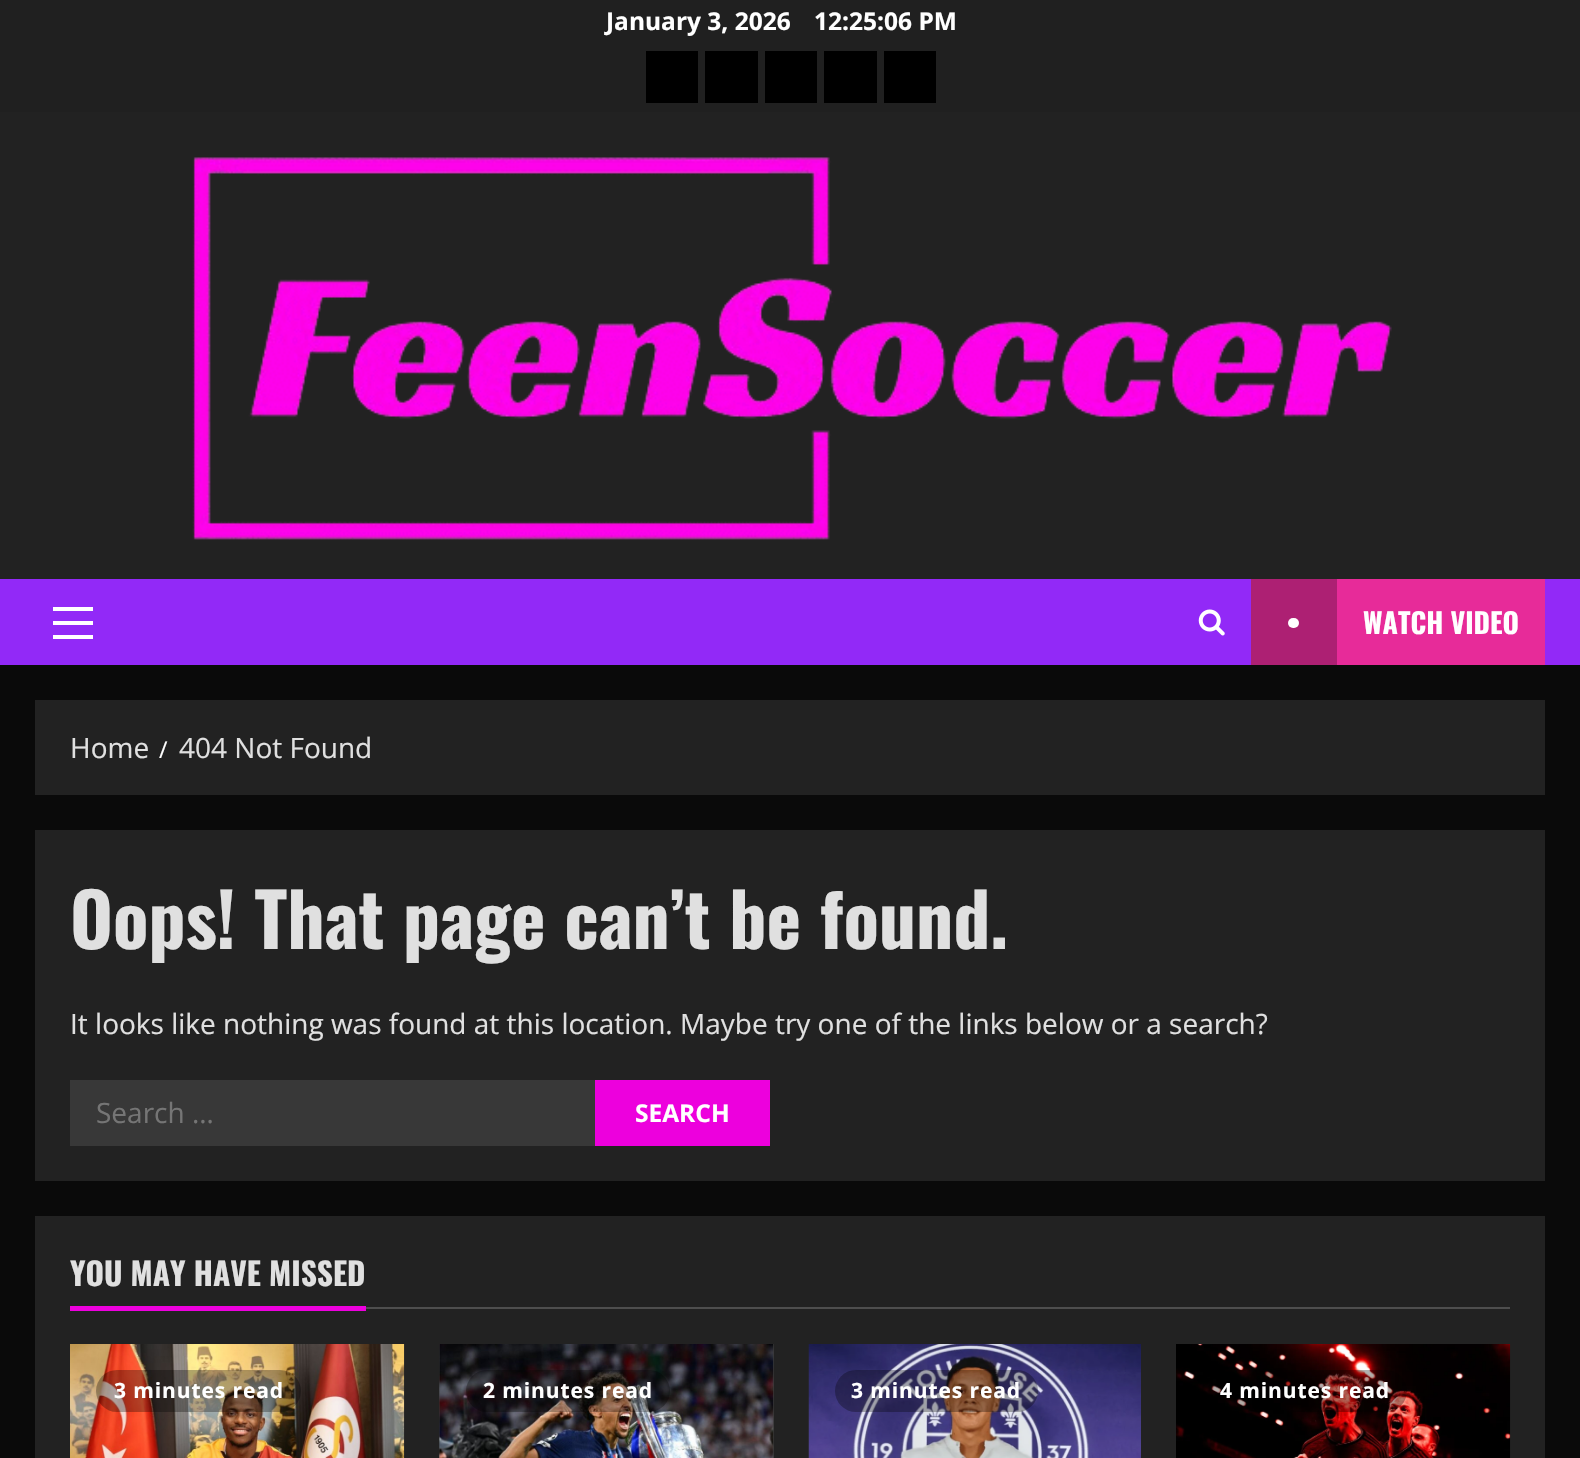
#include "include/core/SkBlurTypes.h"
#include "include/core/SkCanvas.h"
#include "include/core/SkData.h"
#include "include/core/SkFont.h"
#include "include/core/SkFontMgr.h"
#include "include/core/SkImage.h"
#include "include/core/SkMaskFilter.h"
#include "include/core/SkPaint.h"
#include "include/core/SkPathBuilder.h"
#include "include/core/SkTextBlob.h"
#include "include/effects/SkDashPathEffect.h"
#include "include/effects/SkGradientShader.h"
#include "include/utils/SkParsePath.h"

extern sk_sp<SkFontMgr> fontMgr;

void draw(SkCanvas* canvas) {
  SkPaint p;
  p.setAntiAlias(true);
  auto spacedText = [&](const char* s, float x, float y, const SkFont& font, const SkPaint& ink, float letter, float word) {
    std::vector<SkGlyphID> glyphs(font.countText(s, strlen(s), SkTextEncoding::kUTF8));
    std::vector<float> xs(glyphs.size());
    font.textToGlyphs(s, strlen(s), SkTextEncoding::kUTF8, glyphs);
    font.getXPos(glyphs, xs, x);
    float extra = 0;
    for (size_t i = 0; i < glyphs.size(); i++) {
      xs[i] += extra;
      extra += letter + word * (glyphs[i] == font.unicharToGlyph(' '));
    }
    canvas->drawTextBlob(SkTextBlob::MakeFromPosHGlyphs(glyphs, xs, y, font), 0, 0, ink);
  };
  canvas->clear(SkColorSetRGB(10, 10, 10));
  p.setColor(SkColorSetRGB(32, 32, 32));
  canvas->drawRect(SkRect::MakeLTRB(0, 0, 1580, 112), p);
  p.setColor(SK_ColorBLACK);
  canvas->drawRect(SkRect::MakeLTRB(646, 51, 698, 103), p);
  canvas->drawRect(SkRect::MakeLTRB(705, 51, 758, 103), p);
  canvas->drawRect(SkRect::MakeLTRB(765, 51, 817, 103), p);
  canvas->drawRect(SkRect::MakeLTRB(824, 51, 877, 103), p);
  canvas->drawRect(SkRect::MakeLTRB(884, 51, 936, 103), p);
  p.setColor(SkColorSetRGB(34, 34, 34));
  canvas->drawRect(SkRect::MakeLTRB(0, 112, 1580, 579), p);
  canvas->drawImageRect(SkImages::DeferredFromEncodedData(SkData::MakeFromFileName("images/1.png")), SkRect::MakeLTRB(192, 157, 1392, 540), SkSamplingOptions());
  p.setColor(SkColorSetRGB(146, 41, 247));
  canvas->drawRect(SkRect::MakeLTRB(0, 579, 1580, 665), p);
  p.setColor(SK_ColorWHITE);
  canvas->drawRect(SkRect::MakeLTRB(53, 621, 93, 625), p);
  canvas->drawRect(SkRect::MakeLTRB(53, 607, 93, 611), p);
  canvas->drawRect(SkRect::MakeLTRB(53, 635, 93, 639), p);
  canvas->drawImageRect(SkImages::DeferredFromEncodedData(SkData::MakeFromFileName("images/2.png")), SkRect::MakeLTRB(1198, 609, 1225, 636), SkSamplingOptions());
  p.setColor(SkColorSetRGB(231, 43, 153));
  canvas->drawRect(SkRect::MakeLTRB(1337, 579, 1545, 665), p);
  p.setColor(SkColorSetRGB(173, 32, 115));
  canvas->drawRect(SkRect::MakeLTRB(1251, 579, 1337, 665), p);
  p.setColor(SK_ColorWHITE);
  canvas->drawRoundRect(SkRect::MakeLTRB(1288, 618, 1299, 628), 5, 5, p);
  p.setColor(SkColorSetRGB(34, 34, 34));
  canvas->drawRect(SkRect::MakeLTRB(35, 700, 1545, 795), p);
  canvas->drawRect(SkRect::MakeLTRB(35, 830, 1545, 1181), p);
  p.setColor(SkColorSetRGB(56, 56, 56));
  canvas->drawRect(SkRect::MakeLTRB(70, 1080, 595, 1146), p);
  p.setColor(SkColorSetRGB(237, 0, 221));
  canvas->drawRect(SkRect::MakeLTRB(595, 1080, 770, 1146), p);
  p.setColor(SkColorSetRGB(34, 34, 34));
  canvas->drawRect(SkRect::MakeLTRB(35, 1216, 1545, 1458), p);
  p.setColor(SkColorSetRGB(78, 78, 78));
  canvas->drawRect(SkRect::MakeLTRB(366, 1307, 1510, 1309), p);
  p.setColor(SkColorSetRGB(237, 0, 221));
  canvas->drawRect(SkRect::MakeLTRB(70, 1306, 366, 1311), p);
  canvas->drawImageRect(SkImages::DeferredFromEncodedData(SkData::MakeFromFileName("images/3.png")), SkRect::MakeLTRB(70, 1344, 405, 1458), SkSamplingOptions());
  p.setColor(SkColorSetARGB(77, 0, 0, 0));
  canvas->drawRoundRect(SkRect::MakeLTRB(96, 1370, 301, 1412), 21, 21, p);
  p.setColor(SkColorSetRGB(58, 58, 58));
  canvas->drawRect(SkRect::MakeLTRB(439, 1344, 774, 1458), p);
  canvas->drawImageRect(SkImages::DeferredFromEncodedData(SkData::MakeFromFileName("images/4.png")), SkRect::MakeLTRB(439, 1344, 774, 1458), SkSamplingOptions());
  p.setColor(SkColorSetARGB(77, 0, 0, 0));
  canvas->drawRoundRect(SkRect::MakeLTRB(466, 1370, 670, 1412), 21, 21, p);
  canvas->drawImageRect(SkImages::DeferredFromEncodedData(SkData::MakeFromFileName("images/5.png")), SkRect::MakeLTRB(808, 1344, 1141, 1458), SkSamplingOptions());
  canvas->drawRoundRect(SkRect::MakeLTRB(835, 1370, 1038, 1412), 21, 21, p);
  canvas->drawImageRect(SkImages::DeferredFromEncodedData(SkData::MakeFromFileName("images/6.png")), SkRect::MakeLTRB(1176, 1344, 1511, 1458), SkSamplingOptions());
  canvas->drawRoundRect(SkRect::MakeLTRB(1202, 1370, 1407, 1412), 21, 21, p);
  SkFont font1(fontMgr->matchFamilyStyle("Open Sans", SkFontStyle::Bold()), 24.5f);
  font1.setSubpixel(true);
  p.setColor(SK_ColorWHITE);
  canvas->drawString("January 3, 2026", 606, 30, font1, p);
  canvas->drawString("12:25:06 PM", 814, 30, font1, p);
  SkFont font2(fontMgr->matchFamilyStyle("Oswald", SkFontStyle::Bold()), 28);
  font2.setSubpixel(true);
  canvas->drawString("WATCH VIDEO", 1363, 634, font2, p);
  SkFont font3(fontMgr->matchFamilyStyle("Open Sans", SkFontStyle::Normal()), 28);
  font3.setSubpixel(true);
  p.setColor(SkColorSetRGB(224, 224, 224));
  canvas->drawString("Home", 70, 758, font3, p);
  SkFont font4(fontMgr->matchFamilyStyle("Open Sans", SkFontStyle::Normal()), 23);
  font4.setSubpixel(true);
  p.setColor(SK_ColorWHITE);
  canvas->drawString("/", 159, 758, font4, p);
  p.setColor(SkColorSetRGB(224, 224, 224));
  canvas->drawString("404 Not Found", 179, 758, font3, p);
  SkFont font5(fontMgr->matchFamilyStyle("Oswald", SkFontStyle::Bold()), 73.5f);
  font5.setSubpixel(true);
  canvas->drawString("Oops! That page can’t be found.", 70, 949, font5, p);
  canvas->drawString("It looks like nothing was found at this location. Maybe try one of the links below or a search?", 70, 1034, font3, p);
  p.setColor(SkColorSetRGB(117, 117, 117));
  canvas->drawString("Search …", 96, 1123, font3, p);
  p.setColor(SK_ColorWHITE);
  canvas->drawString("SEARCH", 635, 1122, font1, p);
  SkFont font6(fontMgr->matchFamilyStyle("Oswald", SkFontStyle::Bold()), 31.5f);
  font6.setSubpixel(true);
  p.setColor(SkColorSetRGB(224, 224, 224));
  canvas->drawString("YOU MAY HAVE MISSED", 70, 1286, font6, p);
  SkFont font7(fontMgr->matchFamilyStyle("Open Sans", SkFontStyle::Bold()), 21);
  font7.setSubpixel(true);
  p.setColor(SK_ColorWHITE);
  spacedText("3 minutes read", 114, 1398, font7, p, 0.9f, 0);
  spacedText("2 minutes read", 483, 1398, font7, p, 0.9f, 0);
  spacedText("3 minutes read", 851, 1398, font7, p, 0.9f, 0);
  spacedText("4 minutes read", 1220, 1398, font7, p, 0.9f, 0);
}
